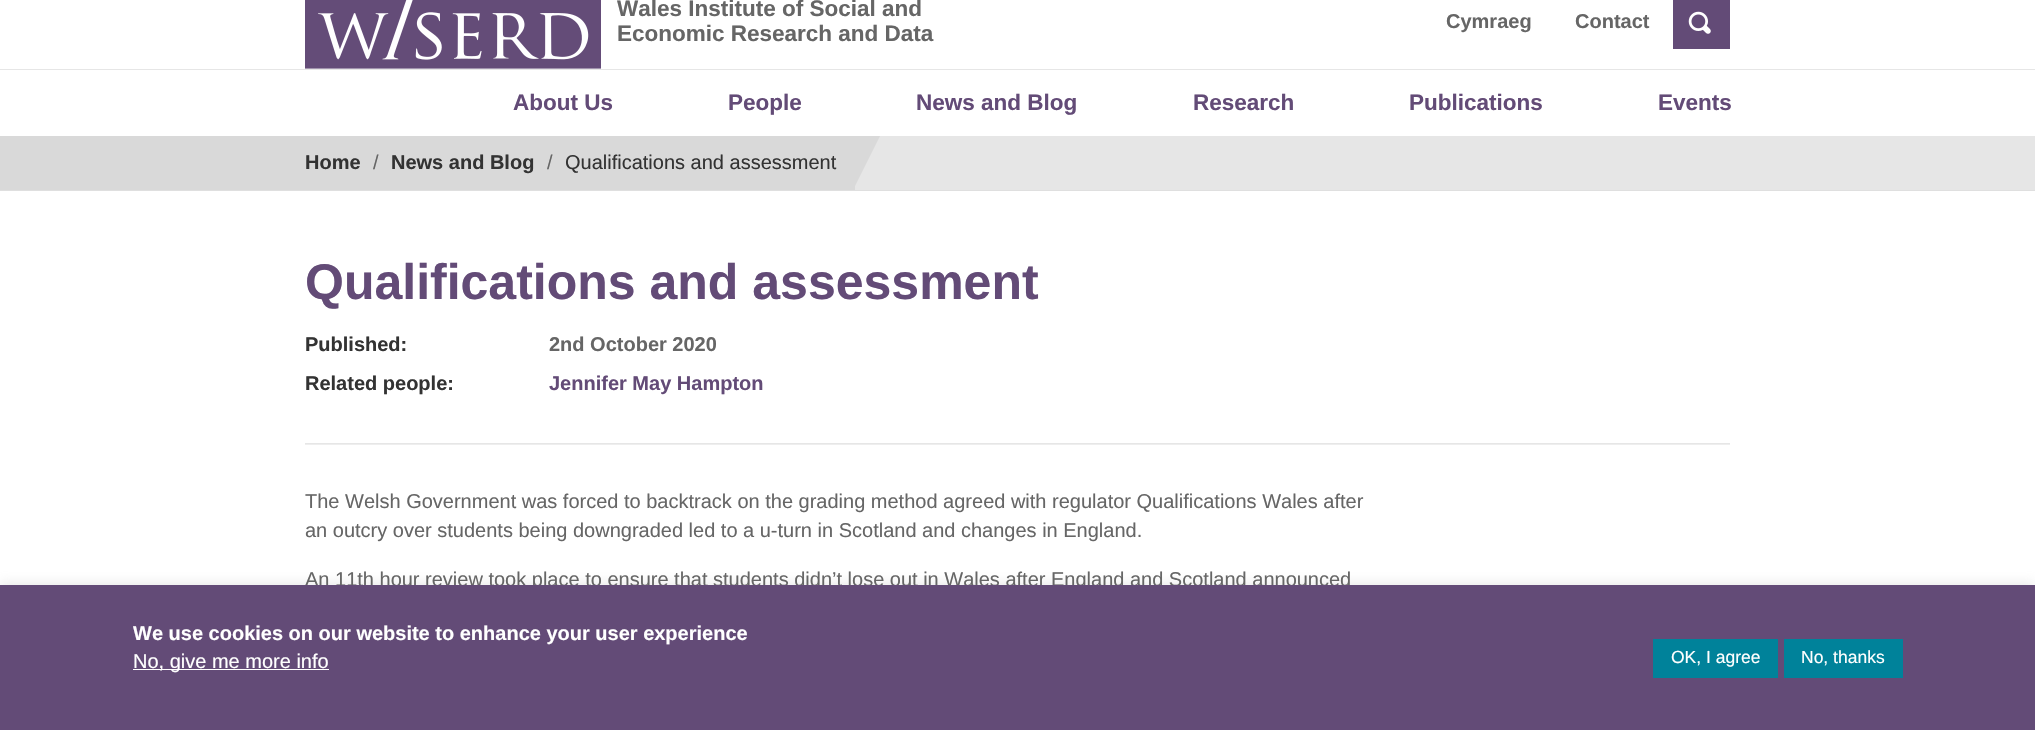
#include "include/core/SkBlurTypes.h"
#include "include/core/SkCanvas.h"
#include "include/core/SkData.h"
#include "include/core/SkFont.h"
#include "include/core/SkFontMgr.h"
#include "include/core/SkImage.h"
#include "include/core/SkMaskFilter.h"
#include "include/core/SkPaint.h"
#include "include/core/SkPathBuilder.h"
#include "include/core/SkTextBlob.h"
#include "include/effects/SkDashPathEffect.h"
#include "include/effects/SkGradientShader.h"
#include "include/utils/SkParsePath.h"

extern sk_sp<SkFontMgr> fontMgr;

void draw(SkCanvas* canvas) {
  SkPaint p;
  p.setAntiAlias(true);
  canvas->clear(SK_ColorWHITE);
  p.setColor(SkColorSetRGB(223, 223, 223));
  canvas->drawRect(SkRect::MakeLTRB(0, 190, 2035, 191), p);
  p.setColor(SkColorSetRGB(230, 230, 230));
  canvas->drawRect(SkRect::MakeLTRB(0, 69, 2035, 70), p);
  canvas->drawImageRect(SkImages::DeferredFromEncodedData(SkData::MakeFromFileName("images/1.png")), SkRect::MakeLTRB(305, 0, 601, 69), SkSamplingOptions());
  p.setColor(SkColorSetRGB(99, 75, 119));
  canvas->drawRect(SkRect::MakeLTRB(1673, 0, 1730, 49), p);
  canvas->drawImageRect(SkImages::DeferredFromEncodedData(SkData::MakeFromFileName("images/2.png")), SkRect::MakeLTRB(1688, 11, 1711, 34), SkSamplingOptions());
  p.setColor(SkColorSetRGB(230, 230, 230));
  canvas->drawRect(SkRect::MakeLTRB(855, 136, 2035, 190), p);
  p.setColor(SkColorSetRGB(217, 217, 217));
  canvas->drawRect(SkRect::MakeLTRB(0, 136, 855, 190), p);
  canvas->drawPath(SkPathBuilder().moveTo(855, 136).lineTo(880, 136).lineTo(855, 186).close().detach(), p);
  p.setColor(SkColorSetRGB(230, 230, 230));
  canvas->drawRect(SkRect::MakeLTRB(305, 443, 1730, 444), p);
  p.setColor(SkColorSetRGB(238, 238, 238));
  canvas->drawRect(SkRect::MakeLTRB(305, 444, 1730, 445), p);
  p.setColor(SkColorSetARGB(77, 172, 171, 171));
  p.setMaskFilter(SkMaskFilter::MakeBlur(kNormal_SkBlurStyle, 6));
  canvas->drawRect(SkRect::MakeLTRB(0, 584, 2035, 729), p);
  p.setMaskFilter(nullptr);
  SkFont font1(fontMgr->matchFamilyStyle("Liberation Sans", SkFontStyle::Bold()), 22.5f);
  font1.setSubpixel(true);
  p.setColor(SkColorSetRGB(102, 102, 102));
  canvas->drawString("Wales Institute of Social and", 617, 16, font1, p);
  canvas->drawString("Economic Research and Data", 617, 41, font1, p);
  SkFont font2(fontMgr->matchFamilyStyle("Liberation Sans", SkFontStyle::Bold()), 20);
  font2.setSubpixel(true);
  canvas->drawString("Cymraeg", 1446, 28, font2, p);
  canvas->drawString("Contact", 1575, 28, font2, p);
  p.setColor(SkColorSetRGB(99, 75, 119));
  canvas->drawString("About Us", 513, 110, font1, p);
  canvas->drawString("People", 728, 110, font1, p);
  canvas->drawString("News and Blog", 916, 110, font1, p);
  canvas->drawString("Research", 1193, 110, font1, p);
  canvas->drawString("Publications", 1409, 110, font1, p);
  canvas->drawString("Events", 1658, 110, font1, p);
  p.setColor(SkColorSetRGB(51, 51, 51));
  canvas->drawString("Home", 305, 169, font2, p);
  SkFont font3(fontMgr->matchFamilyStyle("Liberation Sans", SkFontStyle::Normal()), 20);
  font3.setSubpixel(true);
  p.setColor(SkColorSetRGB(102, 102, 102));
  canvas->drawString("/", 373, 169, font3, p);
  p.setColor(SkColorSetRGB(51, 51, 51));
  canvas->drawString("News and Blog", 391, 169, font2, p);
  p.setColor(SkColorSetRGB(102, 102, 102));
  canvas->drawString("/", 547, 169, font3, p);
  p.setColor(SkColorSetRGB(51, 51, 51));
  canvas->drawString("Qualifications and assessment", 565, 169, font3, p);
  SkFont font4(fontMgr->matchFamilyStyle("Liberation Sans", SkFontStyle::Bold()), 50);
  font4.setSubpixel(true);
  p.setColor(SkColorSetRGB(99, 75, 119));
  canvas->drawString("Qualifications and assessment", 305, 299, font4, p);
  p.setColor(SkColorSetRGB(51, 51, 51));
  canvas->drawString("Published:", 305, 351, font2, p);
  p.setColor(SkColorSetRGB(102, 102, 102));
  canvas->drawString("2nd October 2020", 549, 351, font2, p);
  p.setColor(SkColorSetRGB(51, 51, 51));
  canvas->drawString("Related people:", 305, 390, font2, p);
  p.setColor(SkColorSetRGB(99, 75, 119));
  canvas->drawString("Jennifer May Hampton", 549, 390, font2, p);
  p.setColor(SkColorSetRGB(102, 102, 102));
  canvas->drawString("The Welsh Government was forced to backtrack on the grading method agreed with regulator Qualifications Wales after", 305, 508, font3, p);
  canvas->drawString("an outcry over students being downgraded led to a u-turn in Scotland and changes in England.", 305, 537, font3, p);
  canvas->drawString("An 11th hour review took place to ensure that students didn’t lose out in Wales after England and Scotland announced", 305, 586, font3, p);
  p.setColor(SkColorSetRGB(99, 75, 119));
  canvas->drawRect(SkRect::MakeLTRB(0, 585, 2035, 730), p);
  p.setColor(SK_ColorWHITE);
  canvas->drawString("We use cookies on our website to enhance your user experience", 133, 640, font2, p);
  canvas->drawRect(SkRect::MakeLTRB(133, 669, 329, 670), p);
  canvas->drawString("No, give me more info", 133, 668, font3, p);
  p.setColor(SkColorSetRGB(0, 130, 154));
  canvas->drawRect(SkRect::MakeLTRB(1653, 639, 1778, 678), p);
  SkFont font5(fontMgr->matchFamilyStyle("Liberation Sans", SkFontStyle::Normal()), 17.5f);
  font5.setSubpixel(true);
  p.setColor(SK_ColorWHITE);
  canvas->drawString("OK, I agree", 1671, 663, font5, p);
  p.setColor(SkColorSetRGB(0, 130, 154));
  canvas->drawRect(SkRect::MakeLTRB(1784, 639, 1903, 678), p);
  p.setColor(SK_ColorWHITE);
  canvas->drawString("No, thanks", 1801, 663, font5, p);
}
